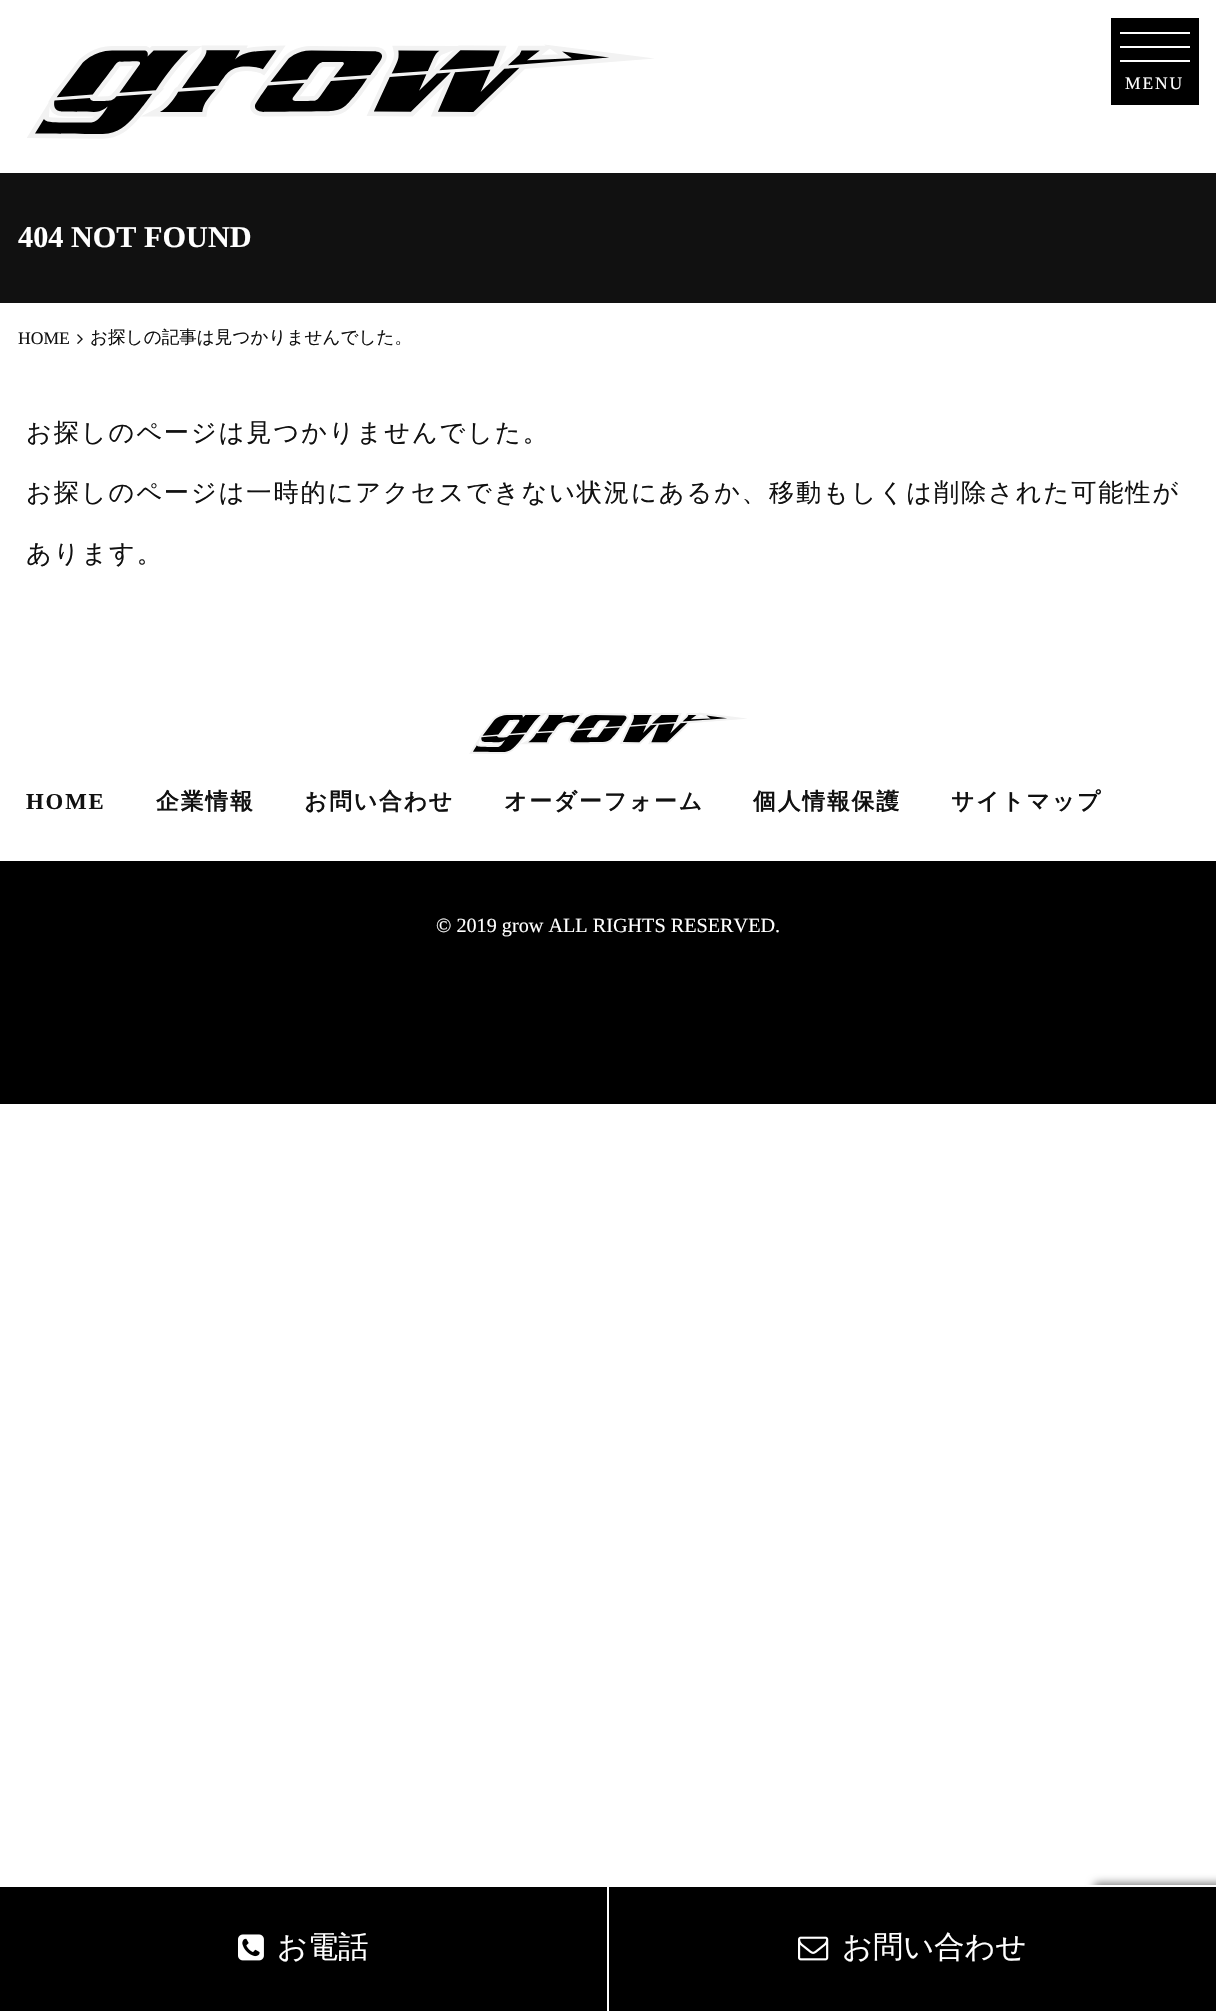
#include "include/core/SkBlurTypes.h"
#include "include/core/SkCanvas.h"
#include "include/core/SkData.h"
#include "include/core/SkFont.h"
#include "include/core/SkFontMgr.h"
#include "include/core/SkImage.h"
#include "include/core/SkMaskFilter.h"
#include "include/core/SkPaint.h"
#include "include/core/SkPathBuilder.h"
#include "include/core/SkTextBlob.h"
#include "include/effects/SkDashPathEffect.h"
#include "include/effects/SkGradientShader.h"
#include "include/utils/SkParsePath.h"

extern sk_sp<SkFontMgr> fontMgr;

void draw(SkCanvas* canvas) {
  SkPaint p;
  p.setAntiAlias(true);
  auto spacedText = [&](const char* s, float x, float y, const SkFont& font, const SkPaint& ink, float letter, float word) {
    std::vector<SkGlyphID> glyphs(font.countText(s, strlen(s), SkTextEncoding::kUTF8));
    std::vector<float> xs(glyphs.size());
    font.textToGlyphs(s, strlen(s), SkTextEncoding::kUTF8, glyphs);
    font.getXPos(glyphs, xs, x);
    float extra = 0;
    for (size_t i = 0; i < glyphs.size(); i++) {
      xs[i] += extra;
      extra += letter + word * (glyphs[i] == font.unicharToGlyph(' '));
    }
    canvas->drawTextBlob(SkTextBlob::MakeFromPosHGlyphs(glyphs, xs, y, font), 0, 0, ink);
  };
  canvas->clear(SK_ColorWHITE);
  canvas->drawImageRect(SkImages::DeferredFromEncodedData(SkData::MakeFromFileName("images/1.png")), SkRect::MakeLTRB(27, 44, 654, 139), SkSamplingOptions());
  p.setColor(SK_ColorBLACK);
  canvas->drawRect(SkRect::MakeLTRB(1111, 18, 1199, 105), p);
  p.setColor(SK_ColorWHITE);
  canvas->drawRect(SkRect::MakeLTRB(1120, 32, 1190, 34), p);
  canvas->drawRect(SkRect::MakeLTRB(1120, 46, 1190, 48), p);
  canvas->drawRect(SkRect::MakeLTRB(1120, 60, 1190, 62), p);
  p.setColor(SkColorSetRGB(17, 17, 17));
  canvas->drawRect(SkRect::MakeLTRB(0, 173, 1216, 303), p);
  canvas->drawImageRect(SkImages::DeferredFromEncodedData(SkData::MakeFromFileName("images/2.png")), SkRect::MakeLTRB(77, 334, 83, 344), SkSamplingOptions());
  canvas->drawImageRect(SkImages::DeferredFromEncodedData(SkData::MakeFromFileName("images/3.png")), SkRect::MakeLTRB(469, 712, 747, 754), SkSamplingOptions());
  p.setColor(SK_ColorBLACK);
  canvas->drawRect(SkRect::MakeLTRB(0, 861, 1216, 1104), p);
  p.setColor(SkColorSetRGB(128, 128, 128));
  p.setMaskFilter(SkMaskFilter::MakeBlur(kNormal_SkBlurStyle, 4.5f));
  canvas->drawRoundRect(SkRect::MakeLTRB(1094, 1883, 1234, 1988), 4, 4, p);
  p.setMaskFilter(nullptr);
  p.setColor(SK_ColorWHITE);
  canvas->drawRect(SkRect::MakeLTRB(1086, 1885, 1216, 1887), p);
  p.setColor(SK_ColorBLACK);
  canvas->drawRect(SkRect::MakeLTRB(0, 1887, 607, 2011), p);
  canvas->drawImageRect(SkImages::DeferredFromEncodedData(SkData::MakeFromFileName("images/4.png")), SkRect::MakeLTRB(238, 1934, 264, 1961), SkSamplingOptions());
  canvas->drawRect(SkRect::MakeLTRB(609, 1887, 1216, 2011), p);
  canvas->drawImageRect(SkImages::DeferredFromEncodedData(SkData::MakeFromFileName("images/5.png")), SkRect::MakeLTRB(798, 1936, 829, 1961), SkSamplingOptions());
  SkFont font1(fontMgr->matchFamilyStyle("Liberation Serif", SkFontStyle::Normal()), 17.5f);
  font1.setSubpixel(true);
  p.setColor(SK_ColorWHITE);
  spacedText("MENU", 1125, 89, font1, p, 1.9f, 0);
  SkFont font2(fontMgr->matchFamilyStyle("Liberation Serif", SkFontStyle::Bold()), 30.25f);
  font2.setSubpixel(true);
  canvas->drawString("404 NOT FOUND", 18, 247, font2, p);
  SkFont font3(fontMgr->matchFamilyStyle("Liberation Serif", SkFontStyle::Normal()), 17.6f);
  font3.setSubpixel(true);
  p.setColor(SkColorSetRGB(17, 17, 17));
  canvas->drawString("HOME", 18, 344, font3, p);
  SkFont font4(fontMgr->matchFamilyStyle("WenQuanYi Zen Hei", SkFontStyle(500, SkFontStyle::kNormal_Width, SkFontStyle::kUpright_Slant)), 17.6f);
  font4.setSubpixel(true);
  canvas->drawString("お探しの記事は見つかりませんでした。", 90, 343, font4, p);
  SkFont font5(fontMgr->matchFamilyStyle("WenQuanYi Zen Hei", SkFontStyle(500, SkFontStyle::kNormal_Width, SkFontStyle::kUpright_Slant)), 25.2f);
  font5.setSubpixel(true);
  spacedText("お探しのページは見つかりませんでした。", 26, 441, font5, p, 1.9f, 0);
  spacedText("お探しのページは一時的にアクセスできない状況にあるか、移動もしくは削除された可能性が", 26, 501, font5, p, 1.9f, 0);
  spacedText("あります。", 26, 562, font5, p, 1.9f, 0);
  SkFont font6(fontMgr->matchFamilyStyle("Liberation Serif", SkFontStyle::Bold()), 22.75f);
  font6.setSubpixel(true);
  spacedText("HOME", 26, 809, font6, p, 1.9f, 0);
  SkFont font7(fontMgr->matchFamilyStyle("WenQuanYi Zen Hei", SkFontStyle::Bold()), 22.75f);
  font7.setSubpixel(true);
  spacedText("企業情報", 156, 809, font7, p, 1.9f, 0);
  spacedText("お問い合わせ", 304, 809, font7, p, 1.9f, 0);
  spacedText("オーダーフォーム", 504, 809, font7, p, 1.9f, 0);
  spacedText("個人情報保護", 753, 809, font7, p, 1.9f, 0);
  spacedText("サイトマップ", 951, 809, font7, p, 1.9f, 0);
  SkFont font8(fontMgr->matchFamilyStyle("Liberation Serif", SkFontStyle::Normal()), 20.2f);
  font8.setSubpixel(true);
  p.setColor(SK_ColorWHITE);
  canvas->drawString("© 2019 grow ALL RIGHTS RESERVED.", 436, 932, font8, p);
  SkFont font9(fontMgr->matchFamilyStyle("WenQuanYi Zen Hei", SkFontStyle(500, SkFontStyle::kNormal_Width, SkFontStyle::kUpright_Slant)), 30.25f);
  font9.setSubpixel(true);
  canvas->drawString("お電話", 277, 1957, font9, p);
  canvas->drawString("お問い合わせ", 842, 1957, font9, p);
}
